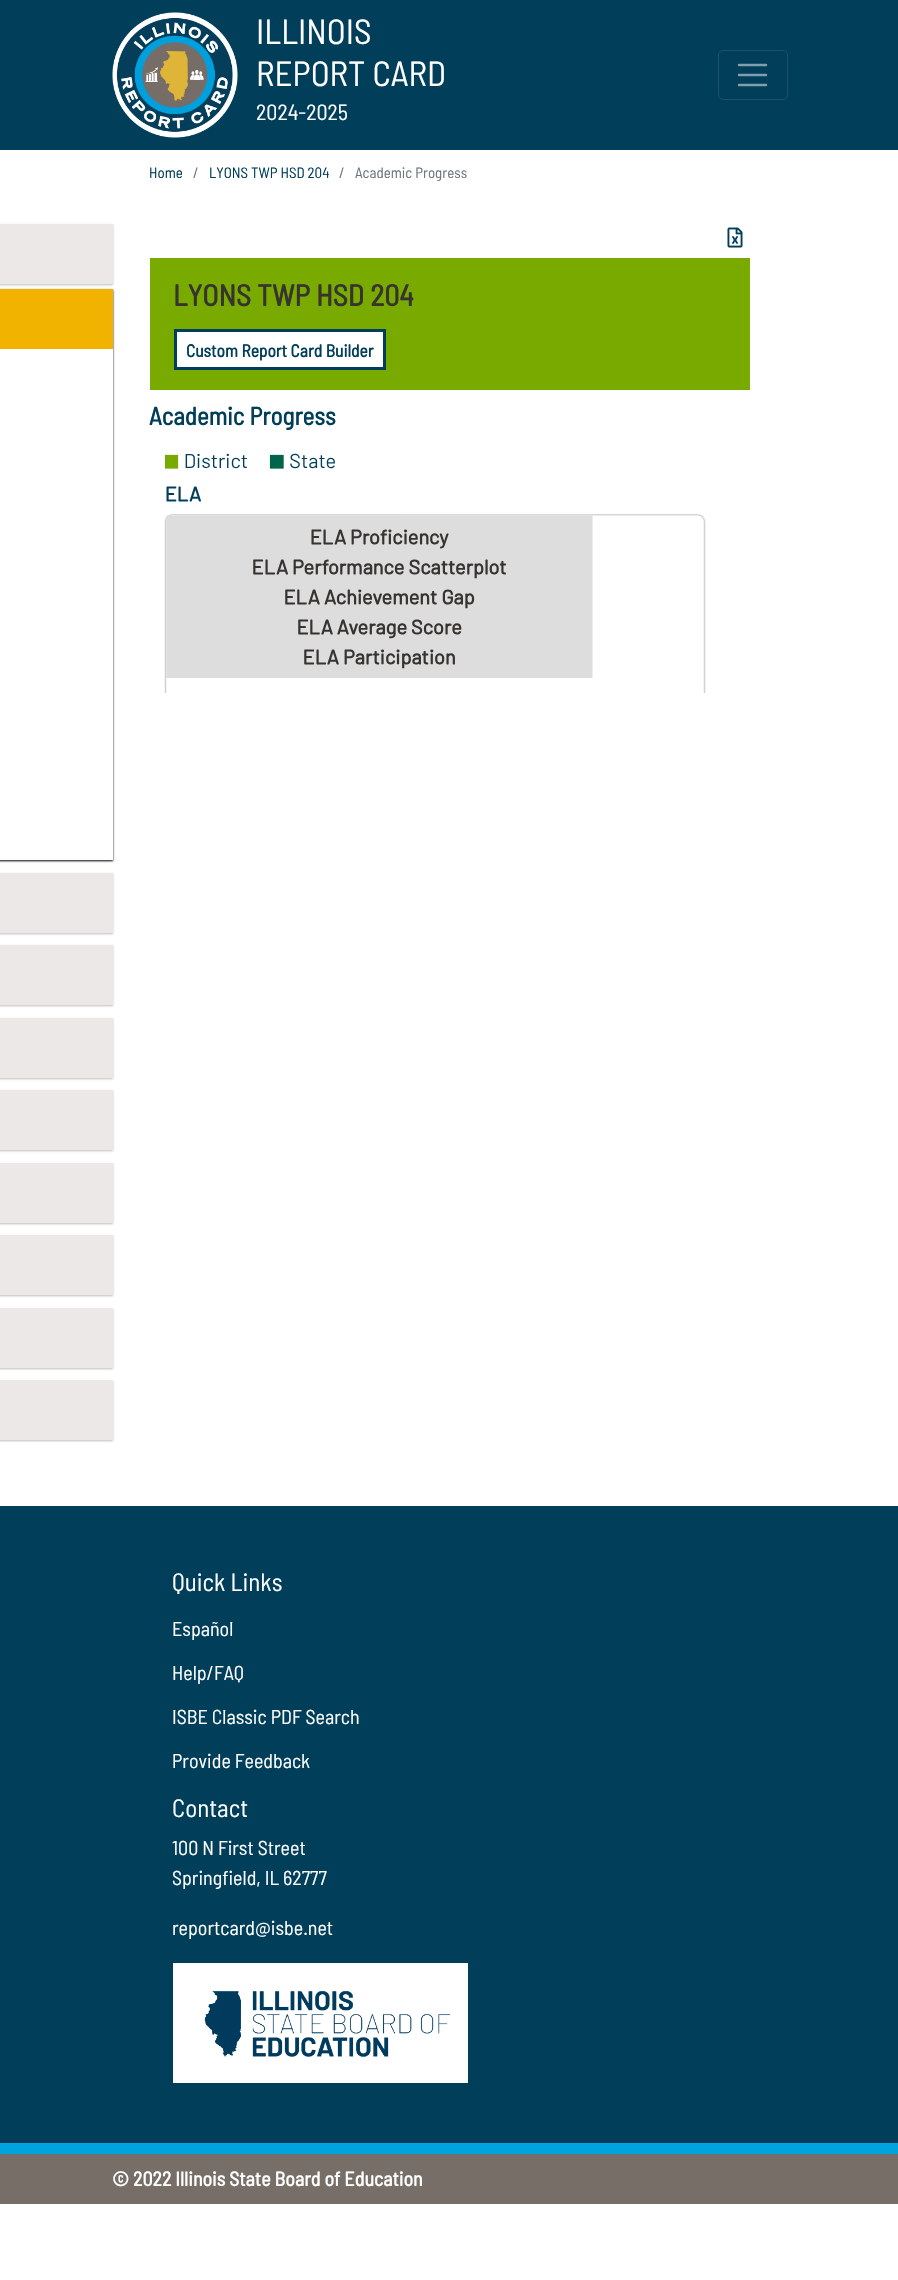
#include "include/core/SkBlurTypes.h"
#include "include/core/SkCanvas.h"
#include "include/core/SkData.h"
#include "include/core/SkFont.h"
#include "include/core/SkFontMgr.h"
#include "include/core/SkImage.h"
#include "include/core/SkMaskFilter.h"
#include "include/core/SkPaint.h"
#include "include/core/SkPathBuilder.h"
#include "include/core/SkTextBlob.h"
#include "include/effects/SkDashPathEffect.h"
#include "include/effects/SkGradientShader.h"
#include "include/utils/SkParsePath.h"

extern sk_sp<SkFontMgr> fontMgr;

void draw(SkCanvas* canvas) {
  SkPaint p;
  p.setAntiAlias(true);
  canvas->clear(SK_ColorWHITE);
  p.setColor(SkColorSetRGB(0, 62, 90));
  canvas->drawRect(SkRect::MakeLTRB(0, 0, 898, 150), p);
  canvas->drawImageRect(SkImages::DeferredFromEncodedData(SkData::MakeFromFileName("images/1.png")), SkRect::MakeLTRB(112, 12, 238, 138), SkSamplingOptions());
  p.setStyle(SkPaint::kStroke_Style);
  p.setStrokeWidth(1);
  p.setColor(SkColorSetRGB(26, 81, 107));
  canvas->drawRoundRect(SkRect::MakeLTRB(718.5f, 50.5f, 787.5f, 99.5f), 4.5f, 4.5f, p);
  p.setStrokeWidth(2.5f);
  p.setStrokeCap(SkPaint::kRound_Cap);
  p.setColor(SkColorSetRGB(128, 159, 173));
  canvas->drawPath(SkPathBuilder().moveTo(739, 65).lineTo(766, 65).moveTo(739, 75).lineTo(766, 75).moveTo(739, 85).lineTo(766, 85).detach(), p);
  p.setStyle(SkPaint::kFill_Style);
  p.setColor(SkColorSetARGB(64, 0, 0, 0));
  p.setMaskFilter(SkMaskFilter::MakeBlur(kNormal_SkBlurStyle, 1));
  canvas->drawRect(SkRect::MakeLTRB(-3, 225, 113, 285), p);
  p.setMaskFilter(nullptr);
  p.setColor(SkColorSetRGB(235, 232, 231));
  canvas->drawRect(SkRect::MakeLTRB(0, 224, 113, 284), p);
  p.setColor(SK_ColorBLACK);
  p.setMaskFilter(SkMaskFilter::MakeBlur(kNormal_SkBlurStyle, 1));
  canvas->drawRect(SkRect::MakeLTRB(-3, 290, 113, 861), p);
  p.setMaskFilter(nullptr);
  p.setColor(SK_ColorWHITE);
  canvas->drawRect(SkRect::MakeLTRB(0, 349, 113, 860), p);
  p.setColor(SkColorSetRGB(241, 179, 0));
  canvas->drawRect(SkRect::MakeLTRB(0, 289, 113, 349), p);
  p.setColor(SkColorSetARGB(64, 0, 0, 0));
  p.setMaskFilter(SkMaskFilter::MakeBlur(kNormal_SkBlurStyle, 1));
  canvas->drawRect(SkRect::MakeLTRB(-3, 874, 113, 934), p);
  p.setMaskFilter(nullptr);
  p.setColor(SkColorSetRGB(235, 232, 231));
  canvas->drawRect(SkRect::MakeLTRB(0, 873, 113, 933), p);
  p.setColor(SkColorSetARGB(64, 0, 0, 0));
  p.setMaskFilter(SkMaskFilter::MakeBlur(kNormal_SkBlurStyle, 1));
  canvas->drawRect(SkRect::MakeLTRB(-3, 946, 113, 1006), p);
  p.setMaskFilter(nullptr);
  p.setColor(SkColorSetRGB(235, 232, 231));
  canvas->drawRect(SkRect::MakeLTRB(0, 945, 113, 1005), p);
  p.setColor(SkColorSetARGB(64, 0, 0, 0));
  p.setMaskFilter(SkMaskFilter::MakeBlur(kNormal_SkBlurStyle, 1));
  canvas->drawRect(SkRect::MakeLTRB(-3, 1019, 113, 1079), p);
  p.setMaskFilter(nullptr);
  p.setColor(SkColorSetRGB(235, 232, 231));
  canvas->drawRect(SkRect::MakeLTRB(0, 1018, 113, 1078), p);
  p.setColor(SkColorSetARGB(64, 0, 0, 0));
  p.setMaskFilter(SkMaskFilter::MakeBlur(kNormal_SkBlurStyle, 1));
  canvas->drawRect(SkRect::MakeLTRB(-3, 1091, 113, 1151), p);
  p.setMaskFilter(nullptr);
  p.setColor(SkColorSetRGB(235, 232, 231));
  canvas->drawRect(SkRect::MakeLTRB(0, 1090, 113, 1150), p);
  p.setColor(SkColorSetARGB(64, 0, 0, 0));
  p.setMaskFilter(SkMaskFilter::MakeBlur(kNormal_SkBlurStyle, 1));
  canvas->drawRect(SkRect::MakeLTRB(-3, 1164, 113, 1224), p);
  p.setMaskFilter(nullptr);
  p.setColor(SkColorSetRGB(235, 232, 231));
  canvas->drawRect(SkRect::MakeLTRB(0, 1163, 113, 1223), p);
  p.setColor(SkColorSetARGB(64, 0, 0, 0));
  p.setMaskFilter(SkMaskFilter::MakeBlur(kNormal_SkBlurStyle, 1));
  canvas->drawRect(SkRect::MakeLTRB(-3, 1236, 113, 1296), p);
  p.setMaskFilter(nullptr);
  p.setColor(SkColorSetRGB(235, 232, 231));
  canvas->drawRect(SkRect::MakeLTRB(0, 1235, 113, 1295), p);
  p.setColor(SkColorSetARGB(64, 0, 0, 0));
  p.setMaskFilter(SkMaskFilter::MakeBlur(kNormal_SkBlurStyle, 1));
  canvas->drawRect(SkRect::MakeLTRB(-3, 1309, 113, 1369), p);
  p.setMaskFilter(nullptr);
  p.setColor(SkColorSetRGB(235, 232, 231));
  canvas->drawRect(SkRect::MakeLTRB(0, 1308, 113, 1368), p);
  p.setColor(SkColorSetARGB(64, 0, 0, 0));
  p.setMaskFilter(SkMaskFilter::MakeBlur(kNormal_SkBlurStyle, 1));
  canvas->drawRect(SkRect::MakeLTRB(-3, 1381, 113, 1441), p);
  p.setMaskFilter(nullptr);
  p.setColor(SkColorSetRGB(235, 232, 231));
  canvas->drawRect(SkRect::MakeLTRB(0, 1380, 113, 1440), p);
  canvas->drawImageRect(SkImages::DeferredFromEncodedData(SkData::MakeFromFileName("images/2.png")), SkRect::MakeLTRB(727, 227, 743, 248), SkSamplingOptions());
  p.setStyle(SkPaint::kStroke_Style);
  p.setStrokeWidth(5);
  p.setStrokeCap(SkPaint::kButt_Cap);
  p.setColor(SkColorSetRGB(120, 170, 0));
  canvas->drawRect(SkRect::MakeLTRB(152.5f, 260.5f, 747.5f, 387.5f), p);
  p.setStyle(SkPaint::kFill_Style);
  canvas->drawRect(SkRect::MakeLTRB(155, 263, 745, 385), p);
  p.setColor(SK_ColorWHITE);
  canvas->drawRect(SkRect::MakeLTRB(175.5f, 330.5f, 384.5f, 368.5f), p);
  p.setStyle(SkPaint::kStroke_Style);
  p.setStrokeWidth(3);
  p.setColor(SkColorSetRGB(0, 62, 90));
  canvas->drawRect(SkRect::MakeLTRB(175.5f, 330.5f, 384.5f, 368.5f), p);
  canvas->drawImageRect(SkImages::DeferredFromEncodedData(SkData::MakeFromFileName("images/3.png")), SkRect::MakeLTRB(164, 443, 706, 693), SkSamplingOptions());
  p.setStyle(SkPaint::kFill_Style);
  canvas->drawRect(SkRect::MakeLTRB(0, 1506, 898, 2143), p);
  p.setColor(SK_ColorWHITE);
  canvas->drawRect(SkRect::MakeLTRB(173, 1963, 468, 2083), p);
  canvas->drawImageRect(SkImages::DeferredFromEncodedData(SkData::MakeFromFileName("images/4.png")), SkRect::MakeLTRB(204, 1991, 451, 2057), SkSamplingOptions());
  p.setColor(SkColorSetRGB(119, 110, 103));
  canvas->drawRect(SkRect::MakeLTRB(0, 2154, 898, 2204), p);
  p.setColor(SkColorSetRGB(0, 163, 222));
  canvas->drawRect(SkRect::MakeLTRB(0, 2143, 898, 2154), p);
  SkFont font1(fontMgr->matchFamilyStyle("Barlow Semi Condensed", SkFontStyle::Normal()), 35);
  font1.setSubpixel(true);
  p.setColor(SK_ColorWHITE);
  canvas->drawString("ILLINOIS", 256, 44, font1, p);
  canvas->drawString("REPORT CARD", 256, 86, font1, p);
  SkFont font2(fontMgr->matchFamilyStyle("Barlow Semi Condensed", SkFontStyle::Normal()), 22);
  font2.setSubpixel(true);
  canvas->drawString("2024-2025", 256, 120, font2, p);
  SkFont font3(fontMgr->matchFamilyStyle("Barlow Semi Condensed", SkFontStyle::Normal()), 15);
  font3.setSubpixel(true);
  p.setColor(SkColorSetRGB(0, 62, 90));
  canvas->drawString("Home", 149, 178, font3, p);
  p.setColor(SkColorSetRGB(108, 117, 125));
  canvas->drawString("/", 193, 178, font3, p);
  p.setColor(SkColorSetRGB(0, 62, 90));
  canvas->drawString("LYONS TWP HSD 204", 209, 178, font3, p);
  p.setColor(SkColorSetRGB(108, 117, 125));
  canvas->drawString("/", 339, 178, font3, p);
  canvas->drawString("Academic Progress", 355, 178, font3, p);
  SkFont font4(fontMgr->matchFamilyStyle("Barlow Semi Condensed", SkFontStyle::Bold()), 30);
  font4.setSubpixel(true);
  p.setColor(SkColorSetRGB(54, 51, 48));
  canvas->drawString("LYONS TWP HSD 204", 173, 306, font4, p);
  SkFont font5(fontMgr->matchFamilyStyle("Barlow Semi Condensed", SkFontStyle::Bold()), 17.5f);
  font5.setSubpixel(true);
  p.setColor(SkColorSetRGB(0, 62, 90));
  canvas->drawString("Custom Report Card Builder", 186, 357, font5, p);
  SkFont font6(fontMgr->matchFamilyStyle("Barlow Semi Condensed", SkFontStyle::Bold()), 25);
  font6.setSubpixel(true);
  canvas->drawString("Academic Progress", 149, 425, font6, p);
  SkFont font7(fontMgr->matchFamilyStyle("Barlow Semi Condensed", SkFontStyle::Normal()), 25);
  font7.setSubpixel(true);
  p.setColor(SK_ColorWHITE);
  canvas->drawString("Quick Links", 172, 1591, font7, p);
  SkFont font8(fontMgr->matchFamilyStyle("Barlow Semi Condensed", SkFontStyle::Normal()), 20);
  font8.setSubpixel(true);
  canvas->drawString("Español", 172, 1636, font8, p);
  canvas->drawString("Help/FAQ", 172, 1680, font8, p);
  canvas->drawString("ISBE Classic PDF Search", 172, 1724, font8, p);
  canvas->drawString("Provide Feedback", 172, 1768, font8, p);
  canvas->drawString("Contact", 172, 1817, font7, p);
  canvas->drawString("100 N First Street", 172, 1855, font8, p);
  canvas->drawString("Springfield, IL 62777", 172, 1885, font8, p);
  canvas->drawString("reportcard@isbe.net", 172, 1935, font8, p);
  SkFont font9(fontMgr->matchFamilyStyle("Barlow Semi Condensed", SkFontStyle::Bold()), 20);
  font9.setSubpixel(true);
  canvas->drawString("© 2022 Illinois State Board of Education", 112, 2186, font9, p);
}
